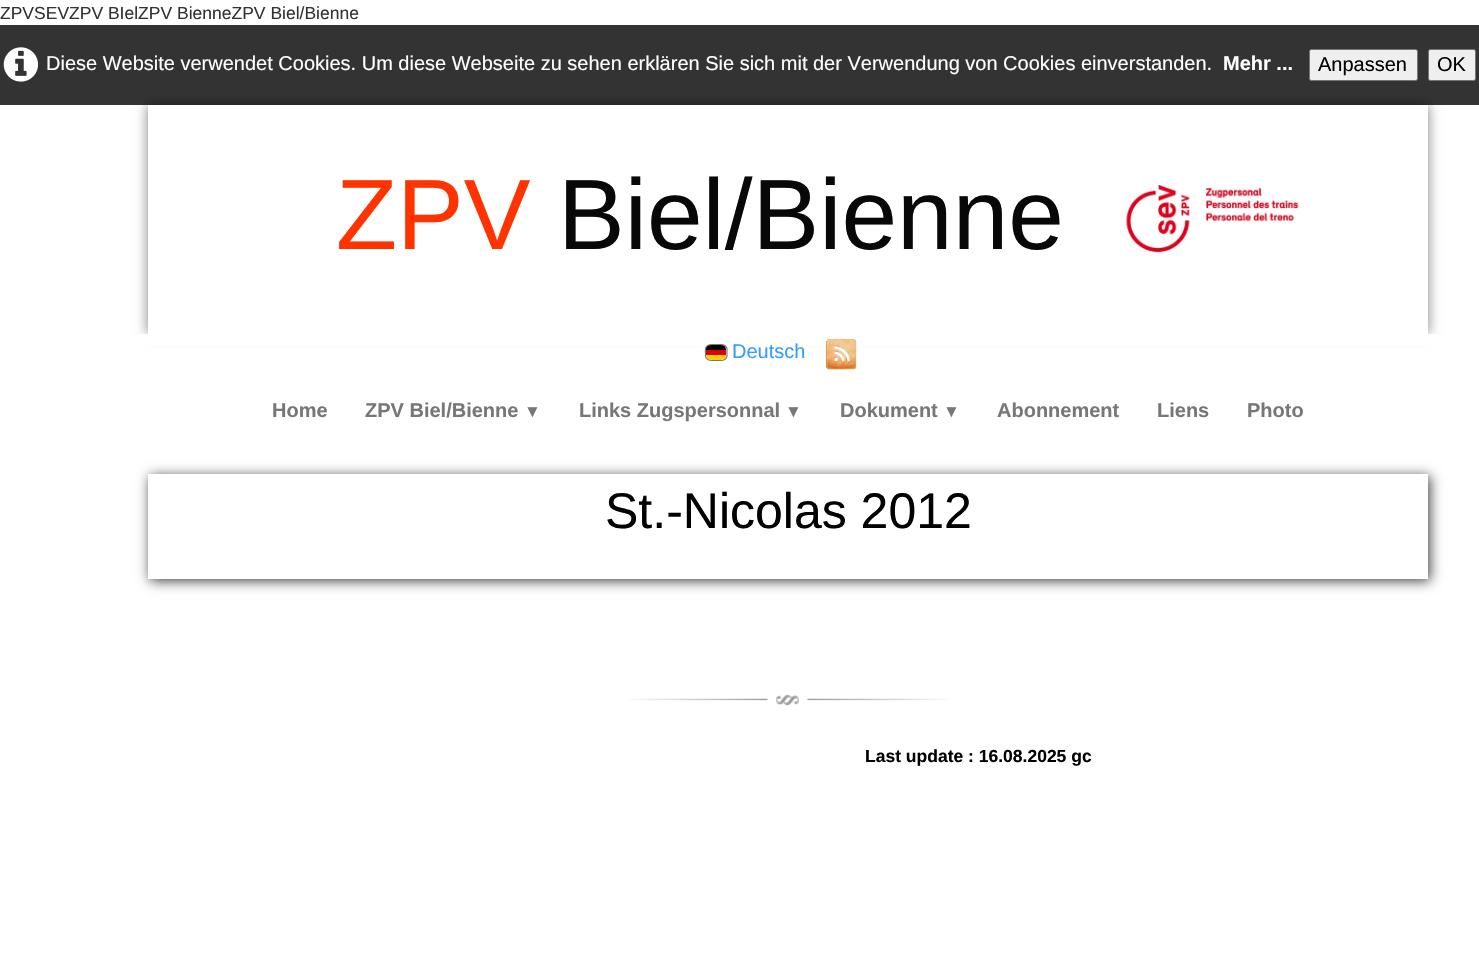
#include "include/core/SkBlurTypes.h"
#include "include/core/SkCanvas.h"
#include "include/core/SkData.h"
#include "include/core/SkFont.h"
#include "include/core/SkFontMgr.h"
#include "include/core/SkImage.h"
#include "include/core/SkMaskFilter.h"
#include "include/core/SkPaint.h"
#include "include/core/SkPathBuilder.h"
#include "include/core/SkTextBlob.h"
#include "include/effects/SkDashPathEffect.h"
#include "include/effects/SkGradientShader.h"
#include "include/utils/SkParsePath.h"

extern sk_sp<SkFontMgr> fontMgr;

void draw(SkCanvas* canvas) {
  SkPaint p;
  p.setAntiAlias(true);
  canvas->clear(SK_ColorWHITE);
  canvas->save();
  canvas->clipPath(SkPathBuilder(SkPathFillType::kEvenOdd).moveTo(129, 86).lineTo(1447, 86).lineTo(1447, 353).lineTo(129, 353).close().moveTo(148, 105).lineTo(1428, 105).lineTo(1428, 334).lineTo(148, 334).close().detach(), true);
  p.setColor(SkColorSetARGB(128, 0, 0, 0));
  p.setMaskFilter(SkMaskFilter::MakeBlur(kNormal_SkBlurStyle, 6));
  canvas->drawRect(SkRect::MakeLTRB(148, 105, 1428, 334), p);
  p.setMaskFilter(nullptr);
  canvas->restore();
  p.setColor(SkColorSetARGB(204, 0, 0, 0));
  canvas->drawRect(SkRect::MakeLTRB(0, 25, 1479, 105), p);
  canvas->drawImageRect(SkImages::DeferredFromEncodedData(SkData::MakeFromFileName("images/1.png")), SkRect::MakeLTRB(3, 47, 38, 82), SkSamplingOptions());
  p.setColor(SkColorSetRGB(239, 239, 239));
  canvas->drawRoundRect(SkRect::MakeLTRB(1309.5f, 49.5f, 1417.5f, 80.5f), 2, 2, p);
  p.setStyle(SkPaint::kStroke_Style);
  p.setStrokeWidth(1);
  p.setColor(SkColorSetRGB(118, 118, 118));
  canvas->drawRoundRect(SkRect::MakeLTRB(1309.5f, 49.5f, 1417.5f, 80.5f), 2, 2, p);
  p.setStyle(SkPaint::kFill_Style);
  p.setColor(SkColorSetRGB(239, 239, 239));
  canvas->drawRoundRect(SkRect::MakeLTRB(1428.5f, 49.5f, 1475.5f, 80.5f), 2, 2, p);
  p.setStyle(SkPaint::kStroke_Style);
  p.setColor(SkColorSetRGB(118, 118, 118));
  canvas->drawRoundRect(SkRect::MakeLTRB(1428.5f, 49.5f, 1475.5f, 80.5f), 2, 2, p);
  canvas->drawImageRect(SkImages::DeferredFromEncodedData(SkData::MakeFromFileName("images/2.png")), SkRect::MakeLTRB(1126, 185, 1302, 254), SkSamplingOptions());
  p.setStyle(SkPaint::kFill_Style);
  p.setColor(SK_ColorWHITE);
  canvas->drawRect(SkRect::MakeLTRB(138, 334, 1438, 346), p);
  p.setStyle(SkPaint::kStroke_Style);
  p.setStrokeWidth(1.2f);
  p.setColor(SkColorSetRGB(120, 120, 120));
  canvas->drawPath(SkPathBuilder().moveTo(712, 344.5f).lineTo(721, 344.5f).cubicTo(724, 344.5f, 727, 346.5f, 727, 349).lineTo(727, 356).cubicTo(727, 358.5f, 724, 360.5f, 721, 360.5f).lineTo(712, 360.5f).cubicTo(708.5f, 360.5f, 705.5f, 358.5f, 705.5f, 356).lineTo(705.5f, 349).cubicTo(705.5f, 346.5f, 708.5f, 344.5f, 712, 344.5f).close().detach(), p);
  p.setStyle(SkPaint::kFill_Style);
  p.setColor(SkColorSetRGB(255, 206, 0));
  canvas->drawPath(SkPathBuilder().moveTo(726, 356.5f).cubicTo(725.5f, 360.5f, 719, 360, 716, 360).cubicTo(712, 360, 706, 360.5f, 706, 355).lineTo(726, 355).close().detach(), p);
  canvas->save();
  canvas->clipRect(SkRect::MakeLTRB(706, 345, 726, 360));
  p.setColor(SK_ColorBLACK);
  canvas->drawPath(SkPathBuilder().moveTo(706, 350).cubicTo(706, 344, 711.5f, 345, 716, 345).cubicTo(720.5f, 345, 726, 344, 726, 350).close().detach(), p);
  canvas->restore();
  p.setColor(SkColorSetRGB(221, 0, 0));
  canvas->drawRect(SkRect::MakeLTRB(706, 350, 726, 355), p);
  canvas->drawImageRect(SkImages::DeferredFromEncodedData(SkData::MakeFromFileName("images/3.png")), SkRect::MakeLTRB(826, 339, 857, 370), SkSamplingOptions());
  canvas->save();
  canvas->clipPath(SkPathBuilder(SkPathFillType::kEvenOdd).moveTo(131, 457).lineTo(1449, 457).lineTo(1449, 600).lineTo(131, 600).close().moveTo(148, 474).lineTo(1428, 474).lineTo(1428, 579).lineTo(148, 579).close().detach(), true);
  p.setColor(SkColorSetARGB(191, 0, 0, 0));
  p.setMaskFilter(SkMaskFilter::MakeBlur(kNormal_SkBlurStyle, 6));
  canvas->drawRect(SkRect::MakeLTRB(150, 476, 1430, 581), p);
  p.setMaskFilter(nullptr);
  canvas->restore();
  canvas->drawImageRect(SkImages::DeferredFromEncodedData(SkData::MakeFromFileName("images/4.png")), SkRect::MakeLTRB(629, 694, 950, 706), SkSamplingOptions());
  SkFont font1(fontMgr->matchFamilyStyle("Liberation Sans", SkFontStyle::Normal()), 17.5f);
  font1.setSubpixel(true);
  p.setColor(SkColorSetRGB(51, 51, 51));
  canvas->drawString("ZPVSEVZPV BIelZPV BienneZPV Biel/Bienne", 0, 19, font1, p);
  SkFont font2(fontMgr->matchFamilyStyle("Liberation Sans", SkFontStyle::Normal()), 20);
  font2.setSubpixel(true);
  p.setColor(SK_ColorWHITE);
  canvas->drawString("Diese Website verwendet Cookies. Um diese Webseite zu sehen erklären Sie sich mit der Verwendung von Cookies einverstanden.", 46, 70, font2, p);
  SkFont font3(fontMgr->matchFamilyStyle("Liberation Sans", SkFontStyle::Bold()), 20);
  font3.setSubpixel(true);
  canvas->drawString("Mehr ...", 1223, 70, font3, p);
  p.setColor(SK_ColorBLACK);
  canvas->drawString("Anpassen", 1318, 71, font2, p);
  canvas->drawString("OK", 1437, 71, font2, p);
  SkFont font4(fontMgr->matchFamilyStyle("Liberation Sans", SkFontStyle::Normal()), 100);
  font4.setSubpixel(true);
  p.setColor(SkColorSetRGB(255, 51, 0));
  canvas->drawString("ZPV", 336, 249, font4, p);
  p.setColor(SkColorSetRGB(8, 8, 8));
  canvas->drawString("Biel/Bienne", 558, 249, font4, p);
  p.setColor(SkColorSetRGB(51, 156, 255));
  canvas->drawString("Deutsch", 732, 358, font2, p);
  p.setColor(SkColorSetRGB(119, 119, 119));
  canvas->drawString("Home", 272, 417, font3, p);
  canvas->drawString("ZPV Biel/Bienne", 365, 417, font3, p);
  SkFont font5(fontMgr->matchFamilyStyle("Liberation Sans", SkFontStyle::Bold()), 17);
  font5.setSubpixel(true);
  canvas->drawString("▼", 524, 417, font5, p);
  canvas->drawString("Links Zugspersonnal", 579, 417, font3, p);
  canvas->drawString("▼", 785, 417, font5, p);
  canvas->drawString("Dokument", 840, 417, font3, p);
  canvas->drawString("▼", 943, 417, font5, p);
  canvas->drawString("Abonnement", 997, 417, font3, p);
  canvas->drawString("Liens", 1157, 417, font3, p);
  canvas->drawString("Photo", 1247, 417, font3, p);
  SkFont font6(fontMgr->matchFamilyStyle("Liberation Sans", SkFontStyle::Normal()), 50);
  font6.setSubpixel(true);
  p.setColor(SK_ColorBLACK);
  canvas->drawString("St.-Nicolas 2012", 605, 528, font6, p);
  SkFont font7(fontMgr->matchFamilyStyle("Liberation Sans", SkFontStyle::Bold()), 17.5f);
  font7.setSubpixel(true);
  canvas->drawString("Last update : 16.08.2025 gc", 865, 762, font7, p);
}
